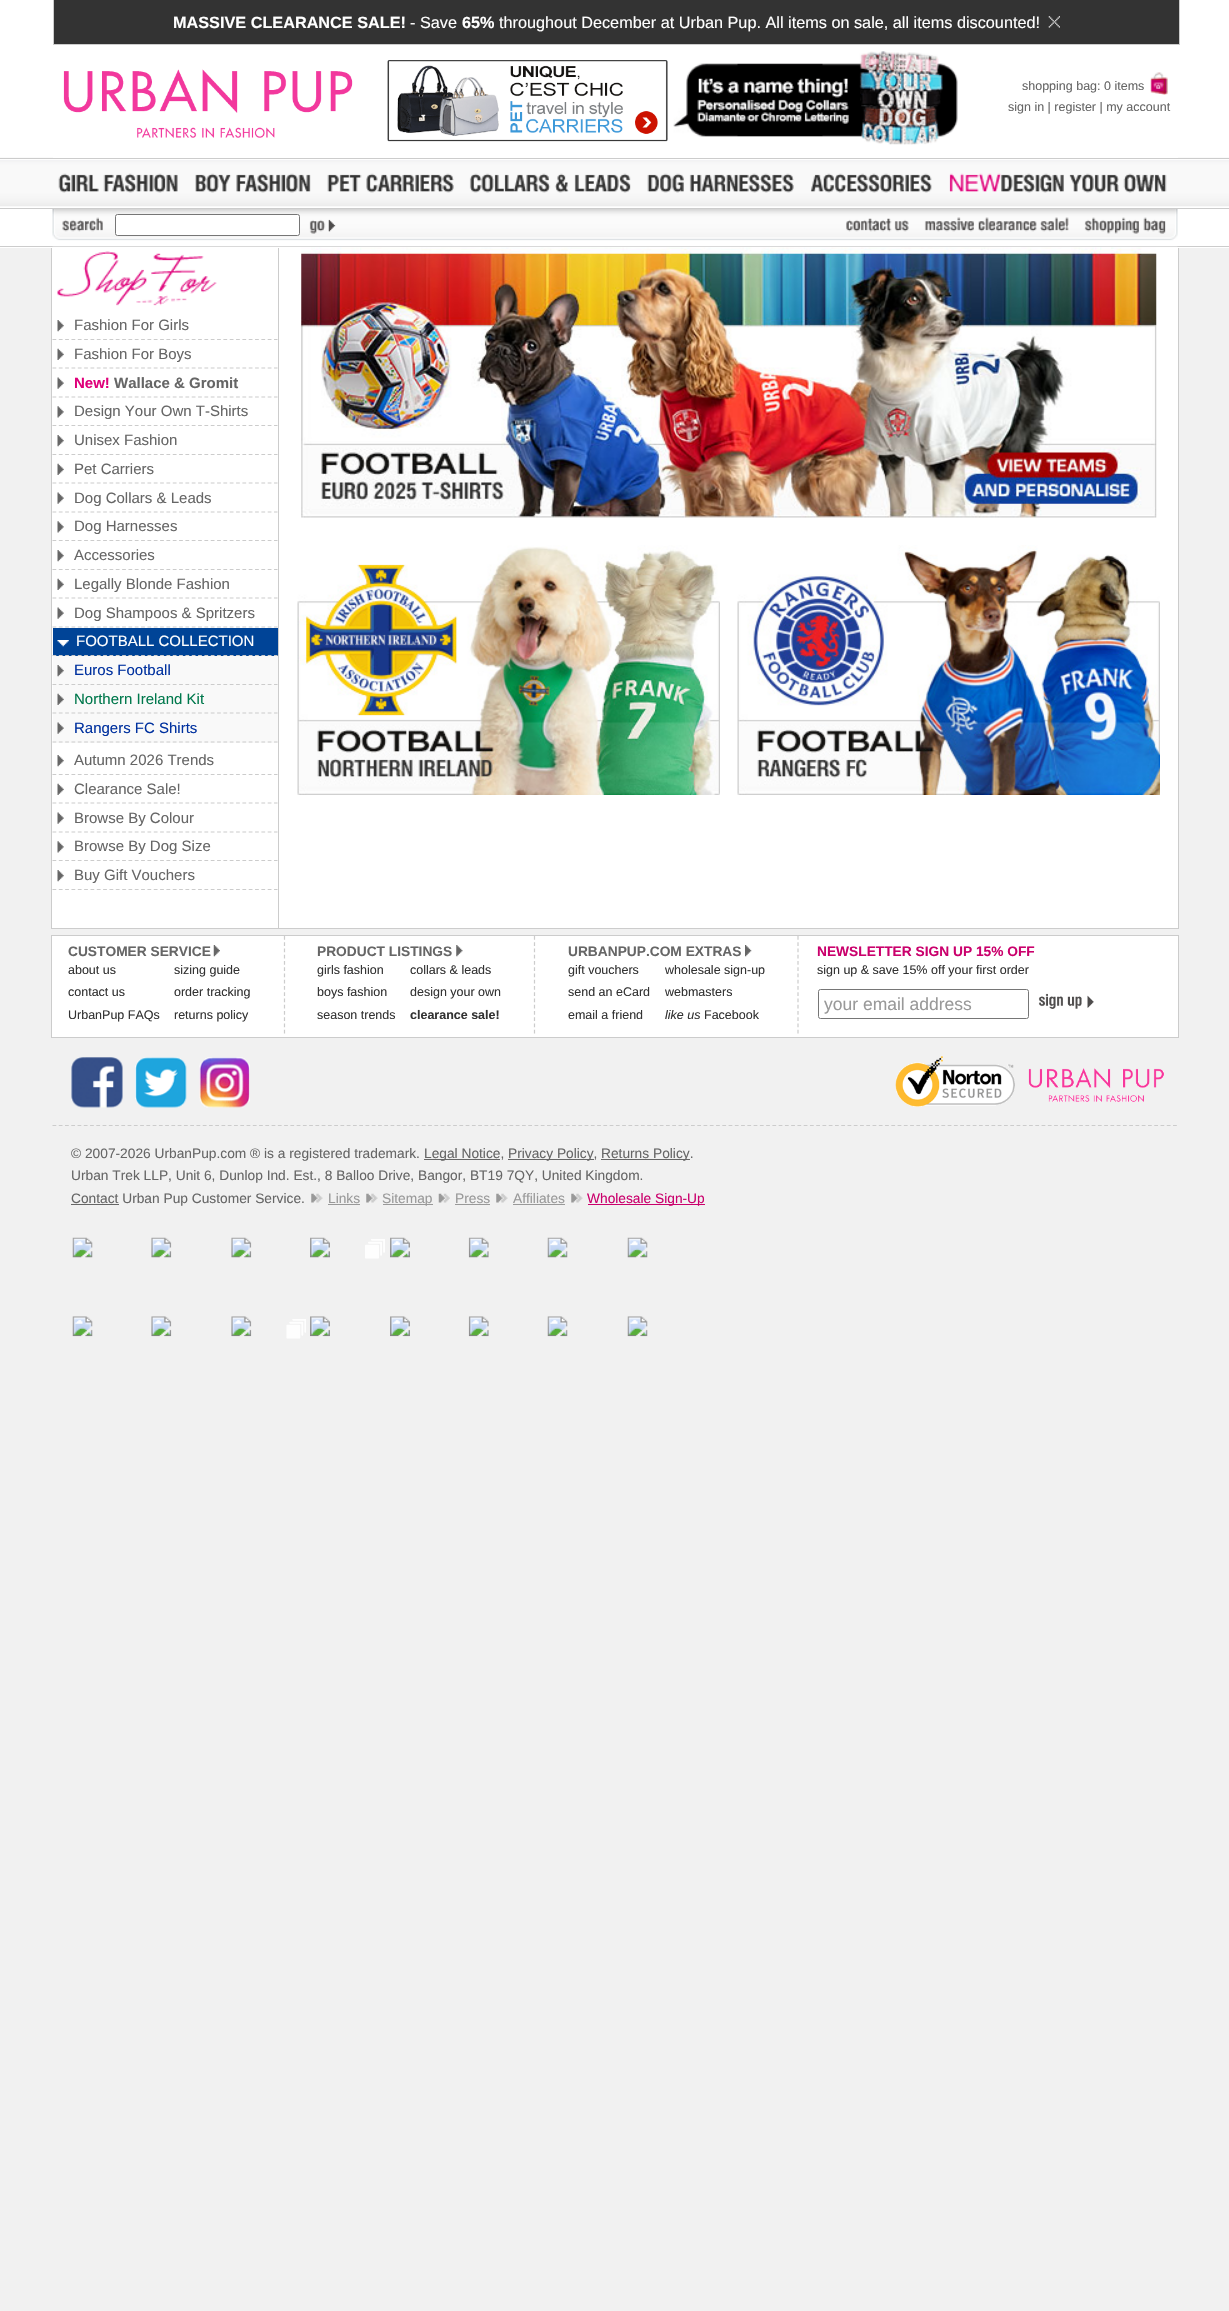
#include "include/core/SkBlurTypes.h"
#include "include/core/SkCanvas.h"
#include "include/core/SkData.h"
#include "include/core/SkFont.h"
#include "include/core/SkFontMgr.h"
#include "include/core/SkImage.h"
#include "include/core/SkMaskFilter.h"
#include "include/core/SkPaint.h"
#include "include/core/SkPathBuilder.h"
#include "include/core/SkTextBlob.h"
#include "include/effects/SkDashPathEffect.h"
#include "include/effects/SkGradientShader.h"
#include "include/utils/SkParsePath.h"

extern sk_sp<SkFontMgr> fontMgr;

void draw(SkCanvas* canvas) {
  SkPaint p;
  p.setAntiAlias(true);
  canvas->clear(SkColorSetRGB(241, 241, 241));
  p.setColor(SK_ColorWHITE);
  canvas->drawRect(SkRect::MakeLTRB(0, 0, 1229, 158), p);
  p.setColor(SkColorSetRGB(51, 51, 51));
  canvas->drawRect(SkRect::MakeLTRB(54, 0, 1179, 44), p);
  p.setColor(SkColorSetRGB(204, 204, 204));
  canvas->drawRect(SkRect::MakeLTRB(1179, 0, 1180, 45), p);
  canvas->drawRect(SkRect::MakeLTRB(53, 44, 1180, 45), p);
  canvas->drawRect(SkRect::MakeLTRB(53, 0, 54, 45), p);
  canvas->drawImageRect(SkImages::DeferredFromEncodedData(SkData::MakeFromFileName("images/1.png")), SkRect::MakeLTRB(1048, 16, 1060, 28), SkSamplingOptions());
  canvas->drawImageRect(SkImages::DeferredFromEncodedData(SkData::MakeFromFileName("images/2.png")), SkRect::MakeLTRB(387, 60, 668, 142), SkSamplingOptions());
  canvas->drawImageRect(SkImages::DeferredFromEncodedData(SkData::MakeFromFileName("images/3.png")), SkRect::MakeLTRB(673, 51, 958, 145), SkSamplingOptions());
  canvas->drawImageRect(SkImages::DeferredFromEncodedData(SkData::MakeFromFileName("images/6.png")), SkRect::MakeLTRB(0, 157, 1229, 208), SkSamplingOptions());
  p.setColor(SK_ColorWHITE);
  canvas->drawRect(SkRect::MakeLTRB(53, 157, 1178, 158), p);
  canvas->drawImageRect(SkImages::DeferredFromEncodedData(SkData::MakeFromFileName("images/4.png")), SkRect::MakeLTRB(63, 69, 353, 138), SkSamplingOptions());
  canvas->drawImageRect(SkImages::DeferredFromEncodedData(SkData::MakeFromFileName("images/5.png")), SkRect::MakeLTRB(1150, 72, 1168, 95), SkSamplingOptions());
  p.setColor(SkColorSetRGB(204, 204, 204));
  canvas->drawRect(SkRect::MakeLTRB(0, 158, 1229, 159), p);
  canvas->drawRect(SkRect::MakeLTRB(0, 208, 1229, 209), p);
  canvas->drawImageRect(SkImages::DeferredFromEncodedData(SkData::MakeFromFileName("images/7.png")), SkRect::MakeLTRB(58, 173, 178, 193), SkSamplingOptions());
  canvas->drawImageRect(SkImages::DeferredFromEncodedData(SkData::MakeFromFileName("images/8.png")), SkRect::MakeLTRB(195, 173, 311, 193), SkSamplingOptions());
  canvas->drawImageRect(SkImages::DeferredFromEncodedData(SkData::MakeFromFileName("images/9.png")), SkRect::MakeLTRB(327, 173, 454, 193), SkSamplingOptions());
  canvas->drawImageRect(SkImages::DeferredFromEncodedData(SkData::MakeFromFileName("images/10.png")), SkRect::MakeLTRB(469, 173, 631, 193), SkSamplingOptions());
  canvas->drawImageRect(SkImages::DeferredFromEncodedData(SkData::MakeFromFileName("images/11.png")), SkRect::MakeLTRB(647, 173, 794, 193), SkSamplingOptions());
  canvas->drawImageRect(SkImages::DeferredFromEncodedData(SkData::MakeFromFileName("images/12.png")), SkRect::MakeLTRB(810, 173, 932, 193), SkSamplingOptions());
  canvas->drawImageRect(SkImages::DeferredFromEncodedData(SkData::MakeFromFileName("images/13.png")), SkRect::MakeLTRB(949, 173, 1167, 193), SkSamplingOptions());
  p.setColor(SK_ColorWHITE);
  canvas->drawRect(SkRect::MakeLTRB(0, 209, 1229, 248), p);
  p.setColor(SkColorSetRGB(204, 204, 204));
  canvas->drawRect(SkRect::MakeLTRB(0, 246, 1229, 247), p);
  canvas->drawImageRect(SkImages::DeferredFromEncodedData(SkData::MakeFromFileName("images/14.png")), SkRect::MakeLTRB(52, 209, 1178, 247), SkSamplingOptions());
  canvas->drawImageRect(SkImages::DeferredFromEncodedData(SkData::MakeFromFileName("images/15.png")), SkRect::MakeLTRB(62, 217, 103, 232), SkSamplingOptions());
  p.setColor(SK_ColorWHITE);
  canvas->drawRoundRect(SkRect::MakeLTRB(115.5f, 214.5f, 299.5f, 235.5f), 2, 2, p);
  p.setStyle(SkPaint::kStroke_Style);
  p.setStrokeWidth(1);
  p.setColor(SkColorSetRGB(118, 118, 118));
  canvas->drawRoundRect(SkRect::MakeLTRB(115.5f, 214.5f, 299.5f, 235.5f), 2, 2, p);
  canvas->drawImageRect(SkImages::DeferredFromEncodedData(SkData::MakeFromFileName("images/16.png")), SkRect::MakeLTRB(309, 219, 336, 234), SkSamplingOptions());
  canvas->drawImageRect(SkImages::DeferredFromEncodedData(SkData::MakeFromFileName("images/17.png")), SkRect::MakeLTRB(846, 218, 909, 232), SkSamplingOptions());
  canvas->drawImageRect(SkImages::DeferredFromEncodedData(SkData::MakeFromFileName("images/18.png")), SkRect::MakeLTRB(924, 217, 1069, 232), SkSamplingOptions());
  canvas->drawImageRect(SkImages::DeferredFromEncodedData(SkData::MakeFromFileName("images/19.png")), SkRect::MakeLTRB(1084, 217, 1166, 234), SkSamplingOptions());
  p.setStyle(SkPaint::kFill_Style);
  p.setColor(SK_ColorWHITE);
  canvas->drawRect(SkRect::MakeLTRB(52, 248, 1178, 928), p);
  p.setColor(SkColorSetRGB(204, 204, 204));
  canvas->drawRect(SkRect::MakeLTRB(1178, 248, 1179, 929), p);
  canvas->drawRect(SkRect::MakeLTRB(51, 928, 1179, 929), p);
  canvas->drawRect(SkRect::MakeLTRB(51, 248, 52, 929), p);
  canvas->drawRect(SkRect::MakeLTRB(278, 248, 279, 928), p);
  canvas->drawImageRect(SkImages::DeferredFromEncodedData(SkData::MakeFromFileName("images/20.png")), SkRect::MakeLTRB(57, 251, 217, 306), SkSamplingOptions());
  canvas->drawImageRect(SkImages::DeferredFromEncodedData(SkData::MakeFromFileName("images/21.png")), SkRect::MakeLTRB(57, 320, 64, 332), SkSamplingOptions());
  p.setStyle(SkPaint::kStroke_Style);
  p.setStrokeWidth(1.2f);
  p.setPathEffect(SkDashPathEffect::Make({{3.75f, 2.58f}}, 0));
  canvas->drawPath(SkPathBuilder().moveTo(52.5f, 339.5f).lineTo(277.5f, 339.5f).detach(), p);
  p.setPathEffect(nullptr);
  canvas->drawImageRect(SkImages::DeferredFromEncodedData(SkData::MakeFromFileName("images/22.png")), SkRect::MakeLTRB(57, 348, 64, 360), SkSamplingOptions());
  p.setPathEffect(SkDashPathEffect::Make({{3.75f, 2.58f}}, 0));
  canvas->drawPath(SkPathBuilder().moveTo(52.5f, 368).lineTo(277.5f, 368).detach(), p);
  p.setPathEffect(nullptr);
  canvas->drawImageRect(SkImages::DeferredFromEncodedData(SkData::MakeFromFileName("images/23.png")), SkRect::MakeLTRB(57, 377, 64, 389), SkSamplingOptions());
  p.setPathEffect(SkDashPathEffect::Make({{3.75f, 2.58f}}, 0));
  canvas->drawPath(SkPathBuilder().moveTo(52.5f, 397).lineTo(277.5f, 397).detach(), p);
  p.setPathEffect(nullptr);
  canvas->drawImageRect(SkImages::DeferredFromEncodedData(SkData::MakeFromFileName("images/24.png")), SkRect::MakeLTRB(57, 406, 64, 418), SkSamplingOptions());
  p.setPathEffect(SkDashPathEffect::Make({{3.75f, 2.58f}}, 0));
  canvas->drawPath(SkPathBuilder().moveTo(52.5f, 425.5f).lineTo(277.5f, 425.5f).detach(), p);
  p.setPathEffect(nullptr);
  canvas->drawImageRect(SkImages::DeferredFromEncodedData(SkData::MakeFromFileName("images/21.png")), SkRect::MakeLTRB(57, 435, 64, 447), SkSamplingOptions());
  p.setPathEffect(SkDashPathEffect::Make({{3.75f, 2.58f}}, 0));
  canvas->drawPath(SkPathBuilder().moveTo(52.5f, 454.5f).lineTo(277.5f, 454.5f).detach(), p);
  p.setPathEffect(nullptr);
  canvas->drawImageRect(SkImages::DeferredFromEncodedData(SkData::MakeFromFileName("images/22.png")), SkRect::MakeLTRB(57, 463, 64, 475), SkSamplingOptions());
  p.setPathEffect(SkDashPathEffect::Make({{3.75f, 2.58f}}, 0));
  canvas->drawPath(SkPathBuilder().moveTo(52.5f, 483).lineTo(277.5f, 483).detach(), p);
  p.setPathEffect(nullptr);
  canvas->drawImageRect(SkImages::DeferredFromEncodedData(SkData::MakeFromFileName("images/23.png")), SkRect::MakeLTRB(57, 492, 64, 504), SkSamplingOptions());
  p.setPathEffect(SkDashPathEffect::Make({{3.75f, 2.58f}}, 0));
  canvas->drawPath(SkPathBuilder().moveTo(52.5f, 512).lineTo(277.5f, 512).detach(), p);
  p.setPathEffect(nullptr);
  canvas->drawImageRect(SkImages::DeferredFromEncodedData(SkData::MakeFromFileName("images/24.png")), SkRect::MakeLTRB(57, 521, 64, 533), SkSamplingOptions());
  p.setPathEffect(SkDashPathEffect::Make({{3.75f, 2.58f}}, 0));
  canvas->drawPath(SkPathBuilder().moveTo(52.5f, 540.5f).lineTo(277.5f, 540.5f).detach(), p);
  p.setPathEffect(nullptr);
  canvas->drawImageRect(SkImages::DeferredFromEncodedData(SkData::MakeFromFileName("images/21.png")), SkRect::MakeLTRB(57, 550, 64, 562), SkSamplingOptions());
  p.setPathEffect(SkDashPathEffect::Make({{3.75f, 2.58f}}, 0));
  canvas->drawPath(SkPathBuilder().moveTo(52.5f, 569.5f).lineTo(277.5f, 569.5f).detach(), p);
  p.setPathEffect(nullptr);
  canvas->drawImageRect(SkImages::DeferredFromEncodedData(SkData::MakeFromFileName("images/22.png")), SkRect::MakeLTRB(57, 578, 64, 590), SkSamplingOptions());
  p.setPathEffect(SkDashPathEffect::Make({{3.75f, 2.58f}}, 0));
  canvas->drawPath(SkPathBuilder().moveTo(52.5f, 598).lineTo(277.5f, 598).detach(), p);
  p.setPathEffect(nullptr);
  canvas->drawImageRect(SkImages::DeferredFromEncodedData(SkData::MakeFromFileName("images/23.png")), SkRect::MakeLTRB(57, 607, 64, 619), SkSamplingOptions());
  p.setPathEffect(SkDashPathEffect::Make({{3.75f, 2.58f}}, 0));
  canvas->drawPath(SkPathBuilder().moveTo(52.5f, 627).lineTo(277.5f, 627).detach(), p);
  p.setPathEffect(nullptr);
  p.setStyle(SkPaint::kFill_Style);
  p.setColor(SkColorSetRGB(0, 68, 151));
  canvas->drawRect(SkRect::MakeLTRB(53, 628, 278, 656), p);
  canvas->drawImageRect(SkImages::DeferredFromEncodedData(SkData::MakeFromFileName("images/25.png")), SkRect::MakeLTRB(57, 640, 69, 647), SkSamplingOptions());
  p.setStyle(SkPaint::kStroke_Style);
  p.setColor(SkColorSetRGB(204, 204, 204));
  p.setPathEffect(SkDashPathEffect::Make({{3.75f, 2.58f}}, 0));
  canvas->drawPath(SkPathBuilder().moveTo(52.5f, 655.5f).lineTo(277.5f, 655.5f).detach(), p);
  p.setPathEffect(nullptr);
  p.setStyle(SkPaint::kFill_Style);
  p.setColor(SkColorSetRGB(249, 249, 249));
  canvas->drawRect(SkRect::MakeLTRB(53, 656, 278, 685), p);
  canvas->drawImageRect(SkImages::DeferredFromEncodedData(SkData::MakeFromFileName("images/26.png")), SkRect::MakeLTRB(57, 665, 64, 677), SkSamplingOptions());
  p.setStyle(SkPaint::kStroke_Style);
  p.setColor(SkColorSetRGB(204, 204, 204));
  p.setPathEffect(SkDashPathEffect::Make({{3.75f, 2.58f}}, 0));
  canvas->drawPath(SkPathBuilder().moveTo(52.5f, 684.5f).lineTo(277.5f, 684.5f).detach(), p);
  p.setPathEffect(nullptr);
  p.setStyle(SkPaint::kFill_Style);
  p.setColor(SkColorSetRGB(249, 249, 249));
  canvas->drawRect(SkRect::MakeLTRB(53, 685, 278, 743), p);
  canvas->drawImageRect(SkImages::DeferredFromEncodedData(SkData::MakeFromFileName("images/27.png")), SkRect::MakeLTRB(57, 693, 64, 705), SkSamplingOptions());
  p.setStyle(SkPaint::kStroke_Style);
  p.setColor(SkColorSetRGB(204, 204, 204));
  p.setPathEffect(SkDashPathEffect::Make({{3.75f, 2.58f}}, 0));
  canvas->drawPath(SkPathBuilder().moveTo(52.5f, 713).lineTo(277.5f, 713).detach(), p);
  p.setPathEffect(nullptr);
  canvas->drawImageRect(SkImages::DeferredFromEncodedData(SkData::MakeFromFileName("images/28.png")), SkRect::MakeLTRB(57, 722, 64, 734), SkSamplingOptions());
  p.setPathEffect(SkDashPathEffect::Make({{3.75f, 2.58f}}, 0));
  canvas->drawPath(SkPathBuilder().moveTo(52.5f, 742).lineTo(277.5f, 742).detach(), p);
  p.setPathEffect(nullptr);
  canvas->drawImageRect(SkImages::DeferredFromEncodedData(SkData::MakeFromFileName("images/21.png")), SkRect::MakeLTRB(57, 755, 64, 767), SkSamplingOptions());
  p.setPathEffect(SkDashPathEffect::Make({{3.75f, 2.58f}}, 0));
  canvas->drawPath(SkPathBuilder().moveTo(52.5f, 774.5f).lineTo(277.5f, 774.5f).detach(), p);
  p.setPathEffect(nullptr);
  canvas->drawImageRect(SkImages::DeferredFromEncodedData(SkData::MakeFromFileName("images/22.png")), SkRect::MakeLTRB(57, 783, 64, 795), SkSamplingOptions());
  p.setPathEffect(SkDashPathEffect::Make({{3.75f, 2.58f}}, 0));
  canvas->drawPath(SkPathBuilder().moveTo(52.5f, 803).lineTo(277.5f, 803).detach(), p);
  p.setPathEffect(nullptr);
  canvas->drawImageRect(SkImages::DeferredFromEncodedData(SkData::MakeFromFileName("images/23.png")), SkRect::MakeLTRB(57, 812, 64, 824), SkSamplingOptions());
  p.setPathEffect(SkDashPathEffect::Make({{3.75f, 2.58f}}, 0));
  canvas->drawPath(SkPathBuilder().moveTo(52.5f, 832).lineTo(277.5f, 832).detach(), p);
  p.setPathEffect(nullptr);
  canvas->drawImageRect(SkImages::DeferredFromEncodedData(SkData::MakeFromFileName("images/24.png")), SkRect::MakeLTRB(57, 841, 64, 853), SkSamplingOptions());
  p.setPathEffect(SkDashPathEffect::Make({{3.75f, 2.58f}}, 0));
  canvas->drawPath(SkPathBuilder().moveTo(52.5f, 860.5f).lineTo(277.5f, 860.5f).detach(), p);
  p.setPathEffect(nullptr);
  canvas->drawImageRect(SkImages::DeferredFromEncodedData(SkData::MakeFromFileName("images/21.png")), SkRect::MakeLTRB(57, 870, 64, 882), SkSamplingOptions());
  p.setPathEffect(SkDashPathEffect::Make({{3.75f, 2.58f}}, 0));
  canvas->drawPath(SkPathBuilder().moveTo(52.5f, 889.5f).lineTo(277.5f, 889.5f).detach(), p);
  p.setPathEffect(nullptr);
  canvas->drawImageRect(SkImages::DeferredFromEncodedData(SkData::MakeFromFileName("images/29.png")), SkRect::MakeLTRB(301, 247, 1157, 518), SkSamplingOptions());
  canvas->drawImageRect(SkImages::DeferredFromEncodedData(SkData::MakeFromFileName("images/30.png")), SkRect::MakeLTRB(297, 545, 720, 795), SkSamplingOptions());
  canvas->drawImageRect(SkImages::DeferredFromEncodedData(SkData::MakeFromFileName("images/31.png")), SkRect::MakeLTRB(737, 545, 1160, 795), SkSamplingOptions());
  p.setStyle(SkPaint::kFill_Style);
  p.setColor(SK_ColorWHITE);
  canvas->drawRect(SkRect::MakeLTRB(51.5f, 935.5f, 1178.5f, 1037.5f), p);
  p.setStyle(SkPaint::kStroke_Style);
  p.setStrokeWidth(1);
  p.setColor(SkColorSetRGB(204, 204, 204));
  canvas->drawRect(SkRect::MakeLTRB(51.5f, 935.5f, 1178.5f, 1037.5f), p);
  p.setStrokeWidth(1.2f);
  p.setPathEffect(SkDashPathEffect::Make({{3.75f, 2.5f}}, 0));
  canvas->drawPath(SkPathBuilder().moveTo(284.5f, 936).lineTo(284.5f, 1034).detach(), p);
  p.setPathEffect(nullptr);
  canvas->drawImageRect(SkImages::DeferredFromEncodedData(SkData::MakeFromFileName("images/32.png")), SkRect::MakeLTRB(213, 945, 220, 957), SkSamplingOptions());
  p.setPathEffect(SkDashPathEffect::Make({{3.75f, 2.5f}}, 0));
  canvas->drawPath(SkPathBuilder().moveTo(534.5f, 936).lineTo(534.5f, 1034).detach(), p);
  p.setPathEffect(nullptr);
  canvas->drawImageRect(SkImages::DeferredFromEncodedData(SkData::MakeFromFileName("images/33.png")), SkRect::MakeLTRB(456, 945, 463, 957), SkSamplingOptions());
  p.setPathEffect(SkDashPathEffect::Make({{3.75f, 2.5f}}, 0));
  canvas->drawPath(SkPathBuilder().moveTo(798, 936).lineTo(798, 1034).detach(), p);
  p.setPathEffect(nullptr);
  canvas->drawImageRect(SkImages::DeferredFromEncodedData(SkData::MakeFromFileName("images/34.png")), SkRect::MakeLTRB(745, 945, 752, 957), SkSamplingOptions());
  p.setStrokeWidth(1);
  p.setColor(SkColorSetRGB(118, 118, 118));
  canvas->drawRoundRect(SkRect::MakeLTRB(818.5f, 989.5f, 1028.5f, 1018.5f), 2, 2, p);
  canvas->drawImageRect(SkImages::DeferredFromEncodedData(SkData::MakeFromFileName("images/35.png")), SkRect::MakeLTRB(1038, 993, 1094, 1009), SkSamplingOptions());
  canvas->drawImageRect(SkImages::DeferredFromEncodedData(SkData::MakeFromFileName("images/36.png")), SkRect::MakeLTRB(71, 1057, 123, 1108), SkSamplingOptions());
  canvas->drawImageRect(SkImages::DeferredFromEncodedData(SkData::MakeFromFileName("images/37.png")), SkRect::MakeLTRB(135, 1057, 187, 1108), SkSamplingOptions());
  canvas->drawImageRect(SkImages::DeferredFromEncodedData(SkData::MakeFromFileName("images/38.png")), SkRect::MakeLTRB(199, 1057, 250, 1108), SkSamplingOptions());
  canvas->drawImageRect(SkImages::DeferredFromEncodedData(SkData::MakeFromFileName("images/39.png")), SkRect::MakeLTRB(895, 1056, 1164, 1107), SkSamplingOptions());
  p.setStrokeWidth(1.2f);
  p.setColor(SkColorSetRGB(204, 204, 204));
  p.setPathEffect(SkDashPathEffect::Make({{3.75f, 2.51f}}, 0));
  canvas->drawPath(SkPathBuilder().moveTo(52.5f, 1125.5f).lineTo(1177.5f, 1125.5f).detach(), p);
  p.setPathEffect(nullptr);
  p.setStyle(SkPaint::kFill_Style);
  p.setColor(SkColorSetRGB(102, 102, 102));
  canvas->drawRect(SkRect::MakeLTRB(424, 1159, 500, 1160), p);
  canvas->drawRect(SkRect::MakeLTRB(508, 1159, 594, 1160), p);
  canvas->drawRect(SkRect::MakeLTRB(601, 1159, 690, 1160), p);
  canvas->drawRect(SkRect::MakeLTRB(71, 1204, 119, 1205), p);
  canvas->drawImageRect(SkImages::DeferredFromEncodedData(SkData::MakeFromFileName("images/40.png")), SkRect::MakeLTRB(311, 1193, 323, 1203), SkSamplingOptions());
  p.setColor(SkColorSetRGB(153, 153, 153));
  canvas->drawRect(SkRect::MakeLTRB(328, 1204, 360, 1205), p);
  canvas->drawImageRect(SkImages::DeferredFromEncodedData(SkData::MakeFromFileName("images/40.png")), SkRect::MakeLTRB(366, 1193, 378, 1203), SkSamplingOptions());
  canvas->drawRect(SkRect::MakeLTRB(383, 1204, 433, 1205), p);
  canvas->drawImageRect(SkImages::DeferredFromEncodedData(SkData::MakeFromFileName("images/41.png")), SkRect::MakeLTRB(438, 1193, 450, 1203), SkSamplingOptions());
  canvas->drawRect(SkRect::MakeLTRB(455, 1204, 490, 1205), p);
  canvas->drawImageRect(SkImages::DeferredFromEncodedData(SkData::MakeFromFileName("images/40.png")), SkRect::MakeLTRB(496, 1193, 508, 1203), SkSamplingOptions());
  canvas->drawRect(SkRect::MakeLTRB(513, 1204, 565, 1205), p);
  canvas->drawImageRect(SkImages::DeferredFromEncodedData(SkData::MakeFromFileName("images/40.png")), SkRect::MakeLTRB(571, 1193, 583, 1203), SkSamplingOptions());
  p.setColor(SkColorSetRGB(202, 0, 108));
  canvas->drawRect(SkRect::MakeLTRB(588, 1204, 705, 1205), p);
  canvas->drawImageRect(SkImages::DeferredFromEncodedData(SkData::MakeFromFileName("images/42.png")), SkRect::MakeLTRB(72, 1237, 648, 1339), SkSamplingOptions());
  SkFont font1(fontMgr->matchFamilyStyle("Liberation Sans", SkFontStyle::Bold()), 16.25f);
  font1.setSubpixel(true);
  p.setColor(SK_ColorWHITE);
  canvas->drawString("MASSIVE CLEARANCE SALE!", 173, 28, font1, p);
  SkFont font2(fontMgr->matchFamilyStyle("Liberation Sans", SkFontStyle::Normal()), 16.25f);
  font2.setSubpixel(true);
  canvas->drawString("- Save", 410, 28, font2, p);
  canvas->drawString("65%", 462, 28, font1, p);
  canvas->drawString("throughout December at Urban Pup. All items on sale, all items discounted!", 499, 28, font2, p);
  SkFont font3(fontMgr->matchFamilyStyle("Liberation Sans", SkFontStyle::Normal()), 12.5f);
  font3.setSubpixel(true);
  p.setColor(SkColorSetRGB(102, 102, 102));
  canvas->drawString("shopping bag: 0 items", 1022, 90, font3, p);
  canvas->drawString("sign in | register | my account", 1008, 111, font3, p);
  SkFont font4(fontMgr->matchFamilyStyle("Liberation Sans", SkFontStyle::Normal()), 15);
  font4.setSubpixel(true);
  canvas->drawString("Fashion For Girls", 74, 330, font4, p);
  canvas->drawString("Fashion For Boys", 74, 359, font4, p);
  SkFont font5(fontMgr->matchFamilyStyle("Liberation Sans", SkFontStyle::Bold()), 15);
  font5.setSubpixel(true);
  p.setColor(SkColorSetRGB(223, 0, 122));
  canvas->drawString("New!", 74, 388, font5, p);
  p.setColor(SkColorSetRGB(102, 102, 102));
  canvas->drawString("Wallace & Gromit", 114, 388, font5, p);
  canvas->drawString("Design Your Own T-Shirts", 74, 416, font4, p);
  canvas->drawString("Unisex Fashion", 74, 445, font4, p);
  canvas->drawString("Pet Carriers", 74, 474, font4, p);
  canvas->drawString("Dog Collars & Leads", 74, 503, font4, p);
  canvas->drawString("Dog Harnesses", 74, 531, font4, p);
  canvas->drawString("Accessories", 74, 560, font4, p);
  canvas->drawString("Legally Blonde Fashion", 74, 589, font4, p);
  canvas->drawString("Dog Shampoos & Spritzers", 74, 618, font4, p);
  p.setColor(SK_ColorWHITE);
  canvas->drawString("FOOTBALL COLLECTION", 76, 646, font4, p);
  p.setColor(SkColorSetRGB(0, 49, 159));
  canvas->drawString("Euros Football", 74, 675, font4, p);
  p.setColor(SkColorSetRGB(0, 120, 76));
  canvas->drawString("Northern Ireland Kit", 74, 704, font4, p);
  p.setColor(SkColorSetRGB(0, 49, 159));
  canvas->drawString("Rangers FC Shirts", 74, 733, font4, p);
  p.setColor(SkColorSetRGB(102, 102, 102));
  canvas->drawString("Autumn 2026 Trends", 74, 765, font4, p);
  canvas->drawString("Clearance Sale!", 74, 794, font4, p);
  canvas->drawString("Browse By Colour", 74, 823, font4, p);
  canvas->drawString("Browse By Dog Size", 74, 851, font4, p);
  canvas->drawString("Buy Gift Vouchers", 74, 880, font4, p);
  SkFont font6(fontMgr->matchFamilyStyle("Liberation Sans", SkFontStyle::Bold()), 13.75f);
  font6.setSubpixel(true);
  canvas->drawString("CUSTOMER SERVICE", 68, 956, font6, p);
  p.setColor(SkColorSetRGB(51, 51, 51));
  canvas->drawString("about us", 68, 974, font3, p);
  canvas->drawString("contact us", 68, 996, font3, p);
  canvas->drawString("UrbanPup FAQs", 68, 1019, font3, p);
  canvas->drawString("sizing guide", 174, 974, font3, p);
  canvas->drawString("order tracking", 174, 996, font3, p);
  canvas->drawString("returns policy", 174, 1019, font3, p);
  p.setColor(SkColorSetRGB(102, 102, 102));
  canvas->drawString("PRODUCT LISTINGS", 317, 956, font6, p);
  p.setColor(SkColorSetRGB(51, 51, 51));
  canvas->drawString("girls fashion", 317, 974, font3, p);
  canvas->drawString("boys fashion", 317, 996, font3, p);
  canvas->drawString("season trends", 317, 1019, font3, p);
  canvas->drawString("collars & leads", 410, 974, font3, p);
  canvas->drawString("design your own", 410, 996, font3, p);
  SkFont font7(fontMgr->matchFamilyStyle("Liberation Sans", SkFontStyle::Bold()), 12.5f);
  font7.setSubpixel(true);
  canvas->drawString("clearance sale!", 410, 1019, font7, p);
  p.setColor(SkColorSetRGB(102, 102, 102));
  canvas->drawString("URBANPUP.COM EXTRAS", 568, 956, font6, p);
  p.setColor(SkColorSetRGB(51, 51, 51));
  canvas->drawString("gift vouchers", 568, 974, font3, p);
  canvas->drawString("send an eCard", 568, 996, font3, p);
  canvas->drawString("email a friend", 568, 1019, font3, p);
  canvas->drawString("wholesale sign-up", 665, 974, font3, p);
  canvas->drawString("webmasters", 665, 996, font3, p);
  SkFont font8(fontMgr->matchFamilyStyle("Liberation Sans", SkFontStyle::Italic()), 12.5f);
  font8.setSubpixel(true);
  canvas->drawString("like us", 665, 1019, font8, p);
  canvas->drawString("Facebook", 704, 1019, font3, p);
  p.setColor(SkColorSetRGB(202, 0, 108));
  canvas->drawString("NEWSLETTER SIGN UP 15% OFF", 817, 956, font6, p);
  p.setColor(SkColorSetRGB(51, 51, 51));
  canvas->drawString("sign up & save 15% off your first order", 817, 974, font3, p);
  SkFont font9(fontMgr->matchFamilyStyle("Liberation Sans", SkFontStyle::Normal()), 17.5f);
  font9.setSubpixel(true);
  p.setColor(SkColorSetRGB(153, 153, 153));
  canvas->drawString("your email address", 824, 1010, font9, p);
  SkFont font10(fontMgr->matchFamilyStyle("Liberation Sans", SkFontStyle::Normal()), 13.75f);
  font10.setSubpixel(true);
  p.setColor(SkColorSetRGB(102, 102, 102));
  canvas->drawString("© 2007-2026 UrbanPup.com ® is a registered trademark.", 71, 1158, font10, p);
  canvas->drawString("Legal Notice,", 424, 1158, font10, p);
  canvas->drawString("Privacy Policy,", 508, 1158, font10, p);
  canvas->drawString("Returns Policy.", 601, 1158, font10, p);
  canvas->drawString("Urban Trek LLP, Unit 6, Dunlop Ind. Est., 8 Balloo Drive, Bangor, BT19 7QY, United Kingdom.", 71, 1180, font10, p);
  canvas->drawString("Contact Urban Pup Customer Service.", 71, 1203, font10, p);
  p.setColor(SkColorSetRGB(153, 153, 153));
  canvas->drawString("Links", 328, 1203, font10, p);
  canvas->drawString("Sitemap", 382, 1203, font10, p);
  canvas->drawString("Press", 455, 1203, font10, p);
  canvas->drawString("Affiliates", 513, 1203, font10, p);
  p.setColor(SkColorSetRGB(202, 0, 108));
  canvas->drawString("Wholesale Sign-Up", 587, 1203, font10, p);
}
